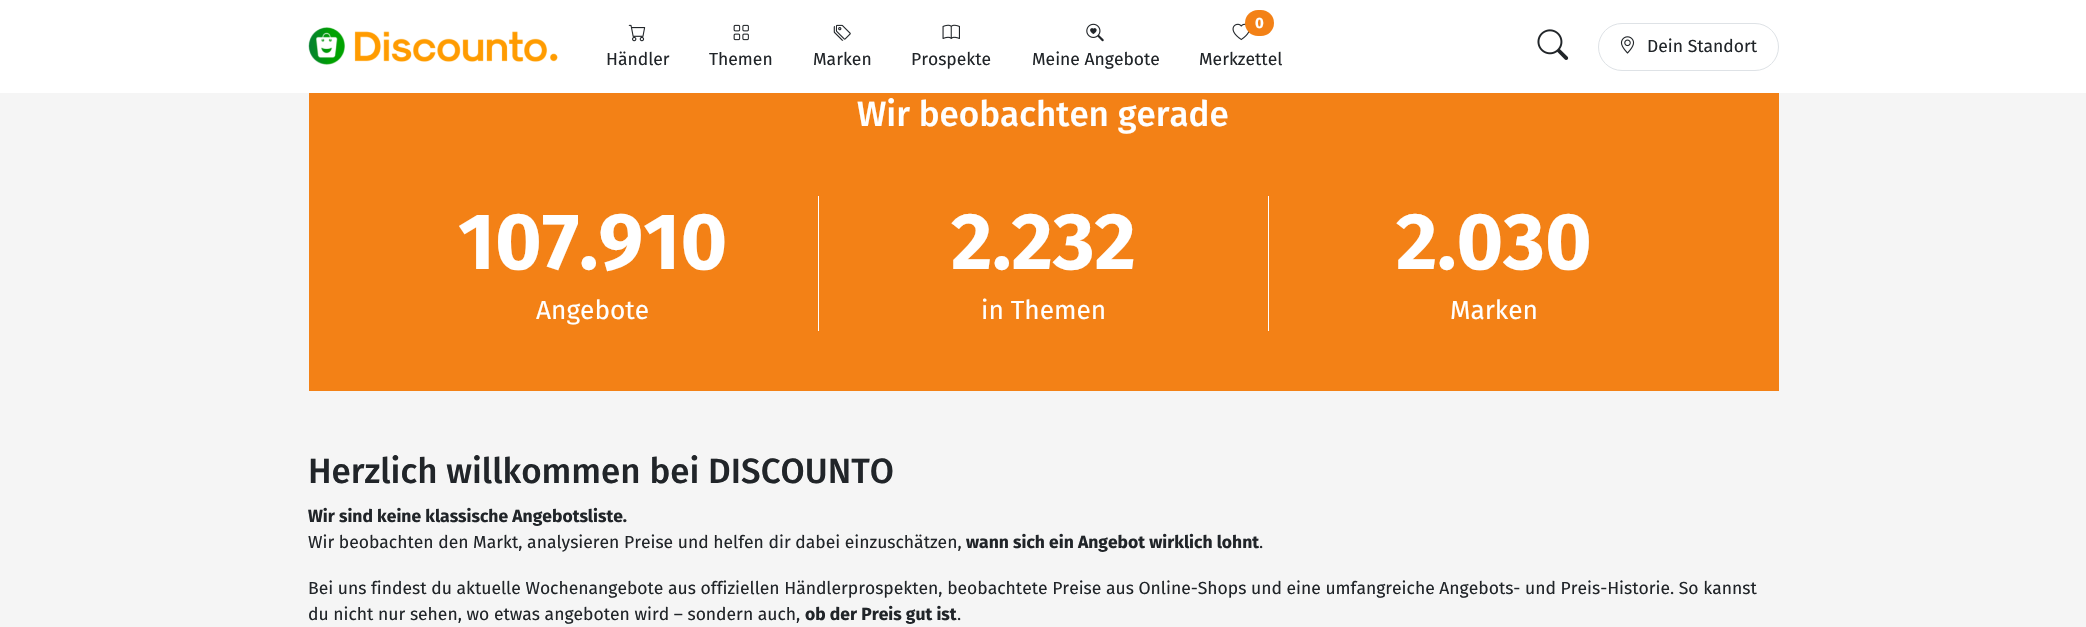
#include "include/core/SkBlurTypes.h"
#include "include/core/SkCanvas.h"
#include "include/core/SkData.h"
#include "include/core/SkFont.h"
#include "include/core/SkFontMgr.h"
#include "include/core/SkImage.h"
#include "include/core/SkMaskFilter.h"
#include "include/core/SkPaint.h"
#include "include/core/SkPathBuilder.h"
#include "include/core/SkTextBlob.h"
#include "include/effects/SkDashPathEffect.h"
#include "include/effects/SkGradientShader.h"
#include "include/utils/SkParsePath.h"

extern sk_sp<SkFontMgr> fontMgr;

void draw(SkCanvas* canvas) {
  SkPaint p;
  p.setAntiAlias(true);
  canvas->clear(SkColorSetRGB(245, 245, 245));
  p.setColor(SK_ColorWHITE);
  canvas->drawRect(SkRect::MakeLTRB(0, 0, 2086, 93), p);
  canvas->drawImageRect(SkImages::DeferredFromEncodedData(SkData::MakeFromFileName("images/1.png")), SkRect::MakeLTRB(308, 27, 558, 65), SkSamplingOptions());
  canvas->drawImageRect(SkImages::DeferredFromEncodedData(SkData::MakeFromFileName("images/2.png")), SkRect::MakeLTRB(628, 24, 646, 42), SkSamplingOptions());
  canvas->drawImageRect(SkImages::DeferredFromEncodedData(SkData::MakeFromFileName("images/3.png")), SkRect::MakeLTRB(733, 24, 749, 41), SkSamplingOptions());
  canvas->drawImageRect(SkImages::DeferredFromEncodedData(SkData::MakeFromFileName("images/4.png")), SkRect::MakeLTRB(833, 24, 851, 41), SkSamplingOptions());
  canvas->drawImageRect(SkImages::DeferredFromEncodedData(SkData::MakeFromFileName("images/5.png")), SkRect::MakeLTRB(942, 24, 960, 39), SkSamplingOptions());
  canvas->drawImageRect(SkImages::DeferredFromEncodedData(SkData::MakeFromFileName("images/6.png")), SkRect::MakeLTRB(1086, 23, 1104, 42), SkSamplingOptions());
  canvas->drawImageRect(SkImages::DeferredFromEncodedData(SkData::MakeFromFileName("images/7.png")), SkRect::MakeLTRB(1232, 23, 1250, 41), SkSamplingOptions());
  p.setColor(SkColorSetRGB(243, 129, 22));
  canvas->drawRoundRect(SkRect::MakeLTRB(1245, 10, 1274, 36), 13, 13, p);
  canvas->drawImageRect(SkImages::DeferredFromEncodedData(SkData::MakeFromFileName("images/8.png")), SkRect::MakeLTRB(1537, 29, 1569, 60), SkSamplingOptions());
  p.setStyle(SkPaint::kStroke_Style);
  p.setStrokeWidth(1);
  p.setColor(SkColorSetRGB(222, 226, 230));
  canvas->drawRoundRect(SkRect::MakeLTRB(1598.5f, 23.5f, 1778.5f, 70.5f), 23.5f, 23.5f, p);
  canvas->drawImageRect(SkImages::DeferredFromEncodedData(SkData::MakeFromFileName("images/9.png")), SkRect::MakeLTRB(1620, 36, 1635, 54), SkSamplingOptions());
  p.setStyle(SkPaint::kFill_Style);
  p.setColor(SkColorSetRGB(243, 129, 22));
  canvas->drawRect(SkRect::MakeLTRB(309, 93, 1779, 391), p);
  p.setColor(SK_ColorWHITE);
  canvas->drawRect(SkRect::MakeLTRB(1268, 196, 1269, 331), p);
  canvas->drawRect(SkRect::MakeLTRB(818, 196, 819, 331), p);
  SkFont font1(fontMgr->matchFamilyStyle("Fira Sans", SkFontStyle::Normal()), 17.5f);
  font1.setSubpixel(true);
  p.setColor(SkColorSetRGB(33, 37, 41));
  canvas->drawString("Händler", 606, 65, font1, p);
  canvas->drawString("Themen", 709, 65, font1, p);
  canvas->drawString("Marken", 813, 65, font1, p);
  canvas->drawString("Prospekte", 911, 65, font1, p);
  canvas->drawString("Meine Angebote", 1032, 65, font1, p);
  SkFont font2(fontMgr->matchFamilyStyle("Fira Sans", SkFontStyle::Bold()), 15);
  font2.setSubpixel(true);
  p.setColor(SK_ColorWHITE);
  canvas->drawString("0", 1255, 28, font2, p);
  p.setColor(SkColorSetRGB(33, 37, 41));
  canvas->drawString("Merkzettel", 1199, 65, font1, p);
  canvas->drawString("Dein Standort", 1647, 52, font1, p);
  SkFont font3(fontMgr->matchFamilyStyle("Fira Sans", SkFontStyle(500, SkFontStyle::kNormal_Width, SkFontStyle::kUpright_Slant)), 35);
  font3.setSubpixel(true);
  p.setColor(SK_ColorWHITE);
  canvas->drawString("Wir beobachten gerade", 857, 126, font3, p);
  SkFont font4(fontMgr->matchFamilyStyle("Fira Sans", SkFontStyle::Bold()), 80);
  font4.setSubpixel(true);
  canvas->drawString("107.910", 458, 269, font4, p);
  SkFont font5(fontMgr->matchFamilyStyle("Fira Sans", SkFontStyle::Normal()), 26.25f);
  font5.setSubpixel(true);
  canvas->drawString("Angebote", 536, 319, font5, p);
  canvas->drawString("2.232", 951, 269, font4, p);
  canvas->drawString("in Themen", 981, 319, font5, p);
  canvas->drawString("2.030", 1396, 269, font4, p);
  canvas->drawString("Marken", 1450, 319, font5, p);
  p.setColor(SkColorSetRGB(33, 37, 41));
  canvas->drawString("Herzlich willkommen bei DISCOUNTO", 308, 483, font3, p);
  SkFont font6(fontMgr->matchFamilyStyle("Fira Sans", SkFontStyle::Bold()), 17.5f);
  font6.setSubpixel(true);
  canvas->drawString("Wir sind keine klassische Angebotsliste.", 308, 522, font6, p);
  canvas->drawString("Wir beobachten den Markt, analysieren Preise und helfen dir dabei einzuschätzen,", 308, 548, font1, p);
  canvas->drawString("wann sich ein Angebot wirklich lohnt", 966, 548, font6, p);
  canvas->drawString(".", 1259, 548, font1, p);
  canvas->drawString("Bei uns findest du aktuelle Wochenangebote aus offiziellen Händlerprospekten, beobachtete Preise aus Online-Shops und eine umfangreiche Angebots- und Preis-Historie. So kannst", 308, 594, font1, p);
  canvas->drawString("du nicht nur sehen, wo etwas angeboten wird – sondern auch,", 308, 620, font1, p);
  canvas->drawString("ob der Preis gut ist", 805, 620, font6, p);
  canvas->drawString(".", 957, 620, font1, p);
}
